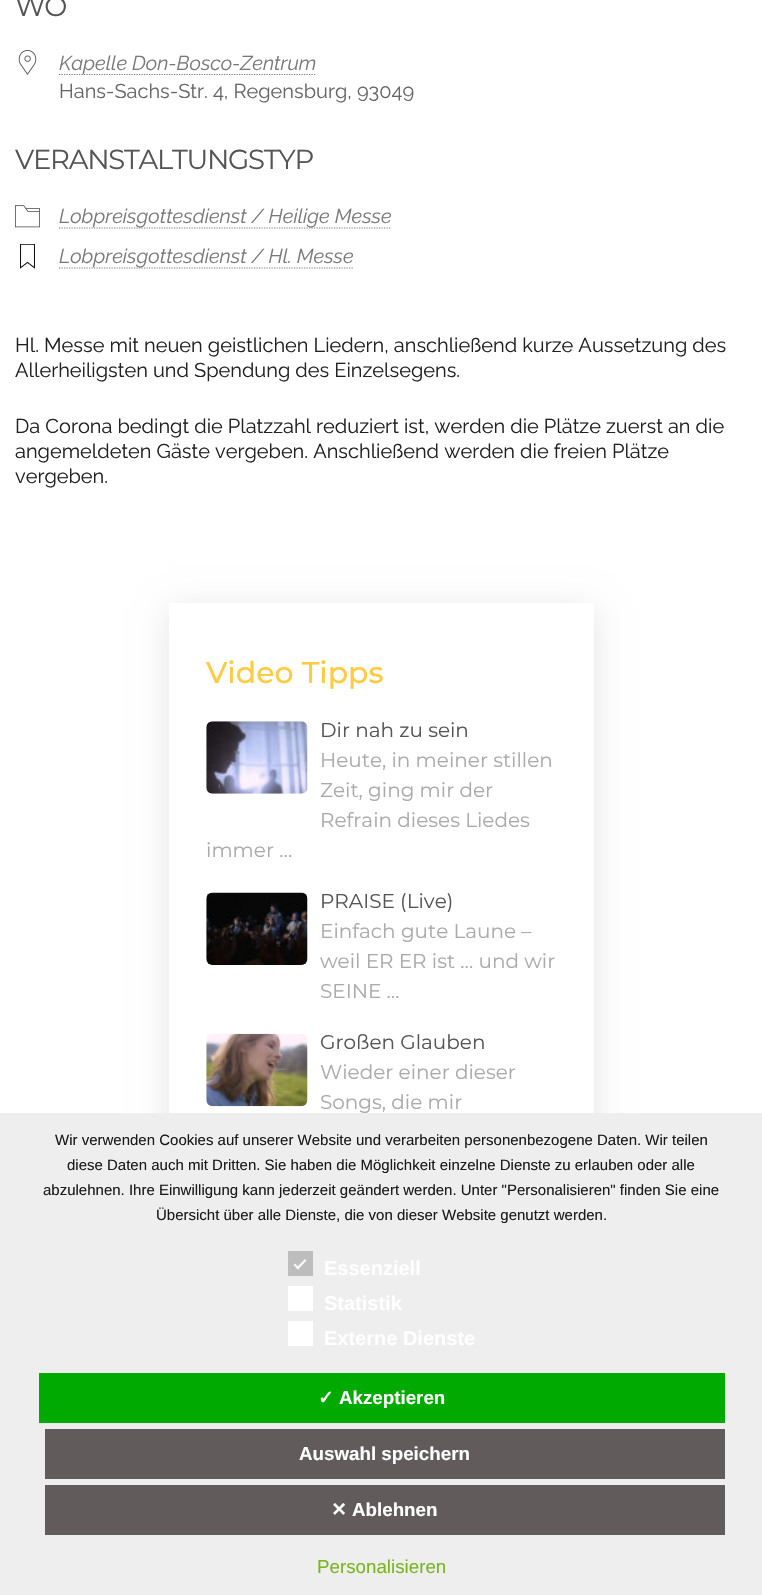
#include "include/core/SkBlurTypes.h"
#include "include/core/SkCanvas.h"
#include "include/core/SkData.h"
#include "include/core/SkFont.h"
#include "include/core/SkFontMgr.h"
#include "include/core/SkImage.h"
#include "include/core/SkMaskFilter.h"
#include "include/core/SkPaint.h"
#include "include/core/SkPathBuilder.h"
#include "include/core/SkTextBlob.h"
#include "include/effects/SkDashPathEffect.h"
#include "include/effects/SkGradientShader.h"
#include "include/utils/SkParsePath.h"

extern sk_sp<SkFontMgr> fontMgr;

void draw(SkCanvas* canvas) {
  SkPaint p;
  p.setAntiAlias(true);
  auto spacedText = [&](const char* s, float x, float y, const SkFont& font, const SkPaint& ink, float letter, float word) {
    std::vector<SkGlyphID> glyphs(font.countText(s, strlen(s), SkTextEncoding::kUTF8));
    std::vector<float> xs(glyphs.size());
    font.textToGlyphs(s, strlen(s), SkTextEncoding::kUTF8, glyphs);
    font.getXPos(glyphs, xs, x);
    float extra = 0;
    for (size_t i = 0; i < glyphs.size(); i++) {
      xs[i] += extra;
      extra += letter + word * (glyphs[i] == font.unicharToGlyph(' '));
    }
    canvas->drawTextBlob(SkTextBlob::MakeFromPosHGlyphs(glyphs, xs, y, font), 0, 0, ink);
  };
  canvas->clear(SK_ColorWHITE);
  canvas->drawImageRect(SkImages::DeferredFromEncodedData(SkData::MakeFromFileName("images/1.png")), SkRect::MakeLTRB(18, 50, 37, 75), SkSamplingOptions());
  p.setStyle(SkPaint::kStroke_Style);
  p.setStrokeWidth(1.2f);
  p.setColor(SkColorSetRGB(120, 120, 120));
  p.setPathEffect(SkDashPathEffect::Make({{1.25f, 1.25f}}, 0));
  canvas->drawPath(SkPathBuilder().moveTo(59, 74.5f).lineTo(316.5f, 74.5f).detach(), p);
  p.setPathEffect(nullptr);
  canvas->drawImageRect(SkImages::DeferredFromEncodedData(SkData::MakeFromFileName("images/2.png")), SkRect::MakeLTRB(15, 205, 40, 228), SkSamplingOptions());
  p.setPathEffect(SkDashPathEffect::Make({{1.25f, 1.25f}}, 0));
  canvas->drawPath(SkPathBuilder().moveTo(59, 228).lineTo(391.5f, 228).detach(), p);
  p.setPathEffect(nullptr);
  canvas->drawImageRect(SkImages::DeferredFromEncodedData(SkData::MakeFromFileName("images/3.png")), SkRect::MakeLTRB(20, 244, 35, 269), SkSamplingOptions());
  p.setPathEffect(SkDashPathEffect::Make({{1.25f, 1.25f}}, 0));
  canvas->drawPath(SkPathBuilder().moveTo(59, 268).lineTo(353.5f, 268).detach(), p);
  p.setPathEffect(nullptr);
  p.setStyle(SkPaint::kFill_Style);
  p.setColor(SkColorSetARGB(26, 0, 0, 0));
  p.setMaskFilter(SkMaskFilter::MakeBlur(kNormal_SkBlurStyle, 15.5f));
  canvas->drawRect(SkRect::MakeLTRB(169, 609, 594, 1234), p);
  p.setMaskFilter(nullptr);
  p.setColor(SK_ColorWHITE);
  canvas->drawRect(SkRect::MakeLTRB(169, 603, 594, 1113), p);
  canvas->drawImageRect(SkImages::DeferredFromEncodedData(SkData::MakeFromFileName("images/4.png")), SkRect::MakeLTRB(206, 721, 308, 794), SkSamplingOptions());
  canvas->drawImageRect(SkImages::DeferredFromEncodedData(SkData::MakeFromFileName("images/5.png")), SkRect::MakeLTRB(206, 892, 308, 965), SkSamplingOptions());
  canvas->drawImageRect(SkImages::DeferredFromEncodedData(SkData::MakeFromFileName("images/6.png")), SkRect::MakeLTRB(206, 1033, 308, 1107), SkSamplingOptions());
  p.setColor(SkColorSetRGB(238, 238, 238));
  canvas->drawRect(SkRect::MakeLTRB(0, 1113, 762, 1595), p);
  p.setColor(SkColorSetRGB(189, 189, 189));
  canvas->drawRect(SkRect::MakeLTRB(288, 1251, 313, 1276), p);
  p.setColor(SkColorSetRGB(248, 248, 248));
  canvas->drawPath(SkPathBuilder().moveTo(305, 1259).lineTo(306.5f, 1260.5f).lineTo(298, 1269.5f).lineTo(296, 1268).close().detach(), p);
  canvas->drawPath(SkPathBuilder().moveTo(295, 1263.5f).lineTo(299.5f, 1268).lineTo(298, 1269.5f).lineTo(293.5f, 1265).close().detach(), p);
  p.setColor(SK_ColorWHITE);
  canvas->drawRect(SkRect::MakeLTRB(288, 1286, 313, 1311), p);
  canvas->drawRect(SkRect::MakeLTRB(288, 1321, 313, 1346), p);
  p.setColor(SkColorSetRGB(0, 170, 0));
  canvas->drawRect(SkRect::MakeLTRB(39, 1373, 725, 1423), p);
  p.setColor(SkColorSetRGB(97, 91, 91));
  canvas->drawRect(SkRect::MakeLTRB(45, 1429, 725, 1479), p);
  canvas->drawRect(SkRect::MakeLTRB(45, 1485, 725, 1535), p);
  SkFont font1(fontMgr->matchFamilyStyle("Montserrat", SkFontStyle::Normal()), 27.5f);
  font1.setSubpixel(true);
  p.setColor(SkColorSetRGB(85, 85, 85));
  spacedText("WO", 15, 16, font1, p, -1.25f, 0);
  SkFont font2(fontMgr->matchFamilyStyle("Raleway", SkFontStyle::Italic()), 20);
  font2.setSubpixel(true);
  p.setColor(SkColorSetRGB(120, 120, 120));
  canvas->drawString("Kapelle Don-Bosco-Zentrum", 59, 70, font2, p);
  SkFont font3(fontMgr->matchFamilyStyle("Raleway", SkFontStyle::Normal()), 20);
  font3.setSubpixel(true);
  p.setColor(SkColorSetRGB(102, 102, 102));
  canvas->drawString("Hans-Sachs-Str. 4, Regensburg, 93049", 59, 98, font3, p);
  p.setColor(SkColorSetRGB(85, 85, 85));
  spacedText("VERANSTALTUNGSTYP", 15, 169, font1, p, -1.25f, 0);
  p.setColor(SkColorSetRGB(120, 120, 120));
  canvas->drawString("Lobpreisgottesdienst / Heilige Messe", 59, 223, font2, p);
  canvas->drawString("Lobpreisgottesdienst / Hl. Messe", 59, 263, font2, p);
  p.setColor(SkColorSetRGB(33, 33, 33));
  canvas->drawString("Hl. Messe mit neuen geistlichen Liedern, anschließend kurze Aussetzung des", 15, 352, font3, p);
  canvas->drawString("Allerheiligsten und Spendung des Einzelsegens.", 15, 377, font3, p);
  canvas->drawString("Da Corona bedingt die Platzzahl reduziert ist, werden die Plätze zuerst an die", 15, 433, font3, p);
  canvas->drawString("angemeldeten Gäste vergeben. Anschließend werden die freien Plätze", 15, 458, font3, p);
  canvas->drawString("vergeben.", 15, 483, font3, p);
  SkFont font4(fontMgr->matchFamilyStyle("Montserrat", SkFontStyle(500, SkFontStyle::kNormal_Width, SkFontStyle::kUpright_Slant)), 30);
  font4.setSubpixel(true);
  p.setColor(SkColorSetRGB(255, 203, 67));
  canvas->drawString("Video Tipps", 206, 683, font4, p);
  SkFont font5(fontMgr->matchFamilyStyle("Montserrat", SkFontStyle::Normal()), 20);
  font5.setSubpixel(true);
  p.setColor(SkColorSetRGB(85, 85, 85));
  canvas->drawString("Dir nah zu sein", 320, 737, font5, p);
  p.setColor(SkColorSetRGB(170, 170, 170));
  canvas->drawString("Heute, in meiner stillen", 320, 767, font5, p);
  canvas->drawString("Zeit, ging mir der", 320, 797, font5, p);
  canvas->drawString("Refrain dieses Liedes", 320, 827, font5, p);
  canvas->drawString("immer …", 206, 857, font5, p);
  p.setColor(SkColorSetRGB(85, 85, 85));
  canvas->drawString("PRAISE (Live)", 320, 908, font5, p);
  p.setColor(SkColorSetRGB(170, 170, 170));
  canvas->drawString("Einfach gute Laune –", 320, 938, font5, p);
  canvas->drawString("weil ER ER ist … und wir", 320, 968, font5, p);
  canvas->drawString("SEINE …", 320, 998, font5, p);
  p.setColor(SkColorSetRGB(85, 85, 85));
  canvas->drawString("Großen Glauben", 320, 1049, font5, p);
  p.setColor(SkColorSetRGB(170, 170, 170));
  canvas->drawString("Wieder einer dieser", 320, 1079, font5, p);
  canvas->drawString("Songs, die mir", 320, 1109, font5, p);
  SkFont font6(fontMgr->matchFamilyStyle("Liberation Sans", SkFontStyle::Normal()), 15);
  font6.setSubpixel(true);
  p.setColor(SkColorSetRGB(26, 26, 26));
  canvas->drawString("Wir verwenden Cookies auf unserer Website und verarbeiten personenbezogene Daten. Wir teilen", 55, 1145, font6, p);
  canvas->drawString("diese Daten auch mit Dritten. Sie haben die Möglichkeit einzelne Dienste zu erlauben oder alle", 67, 1170, font6, p);
  canvas->drawString("abzulehnen. Ihre Einwilligung kann jederzeit geändert werden. Unter \"Personalisieren\" finden Sie eine", 43, 1195, font6, p);
  canvas->drawString("Übersicht über alle Dienste, die von dieser Website genutzt werden.", 156, 1220, font6, p);
  SkFont font7(fontMgr->matchFamilyStyle("Liberation Sans", SkFontStyle::Bold()), 20);
  font7.setSubpixel(true);
  p.setColor(SK_ColorWHITE);
  canvas->drawString("Essenziell", 324, 1275, font7, p);
  canvas->drawString("Statistik", 324, 1310, font7, p);
  canvas->drawString("Externe Dienste", 324, 1345, font7, p);
  SkFont font8(fontMgr->matchFamilyStyle("DejaVu Sans", SkFontStyle::Bold()), 18.75f);
  font8.setSubpixel(true);
  canvas->drawString("✓", 318, 1404, font8, p);
  SkFont font9(fontMgr->matchFamilyStyle("Liberation Sans", SkFontStyle::Bold()), 18.75f);
  font9.setSubpixel(true);
  canvas->drawString("Akzeptieren", 339, 1404, font9, p);
  canvas->drawString("Auswahl speichern", 299, 1460, font9, p);
  canvas->drawString("✕", 331, 1516, font8, p);
  canvas->drawString("Ablehnen", 352, 1516, font9, p);
  SkFont font10(fontMgr->matchFamilyStyle("Liberation Sans", SkFontStyle::Normal()), 18.75f);
  font10.setSubpixel(true);
  p.setColor(SkColorSetRGB(121, 181, 31));
  canvas->drawString("Personalisieren", 317, 1573, font10, p);
}
